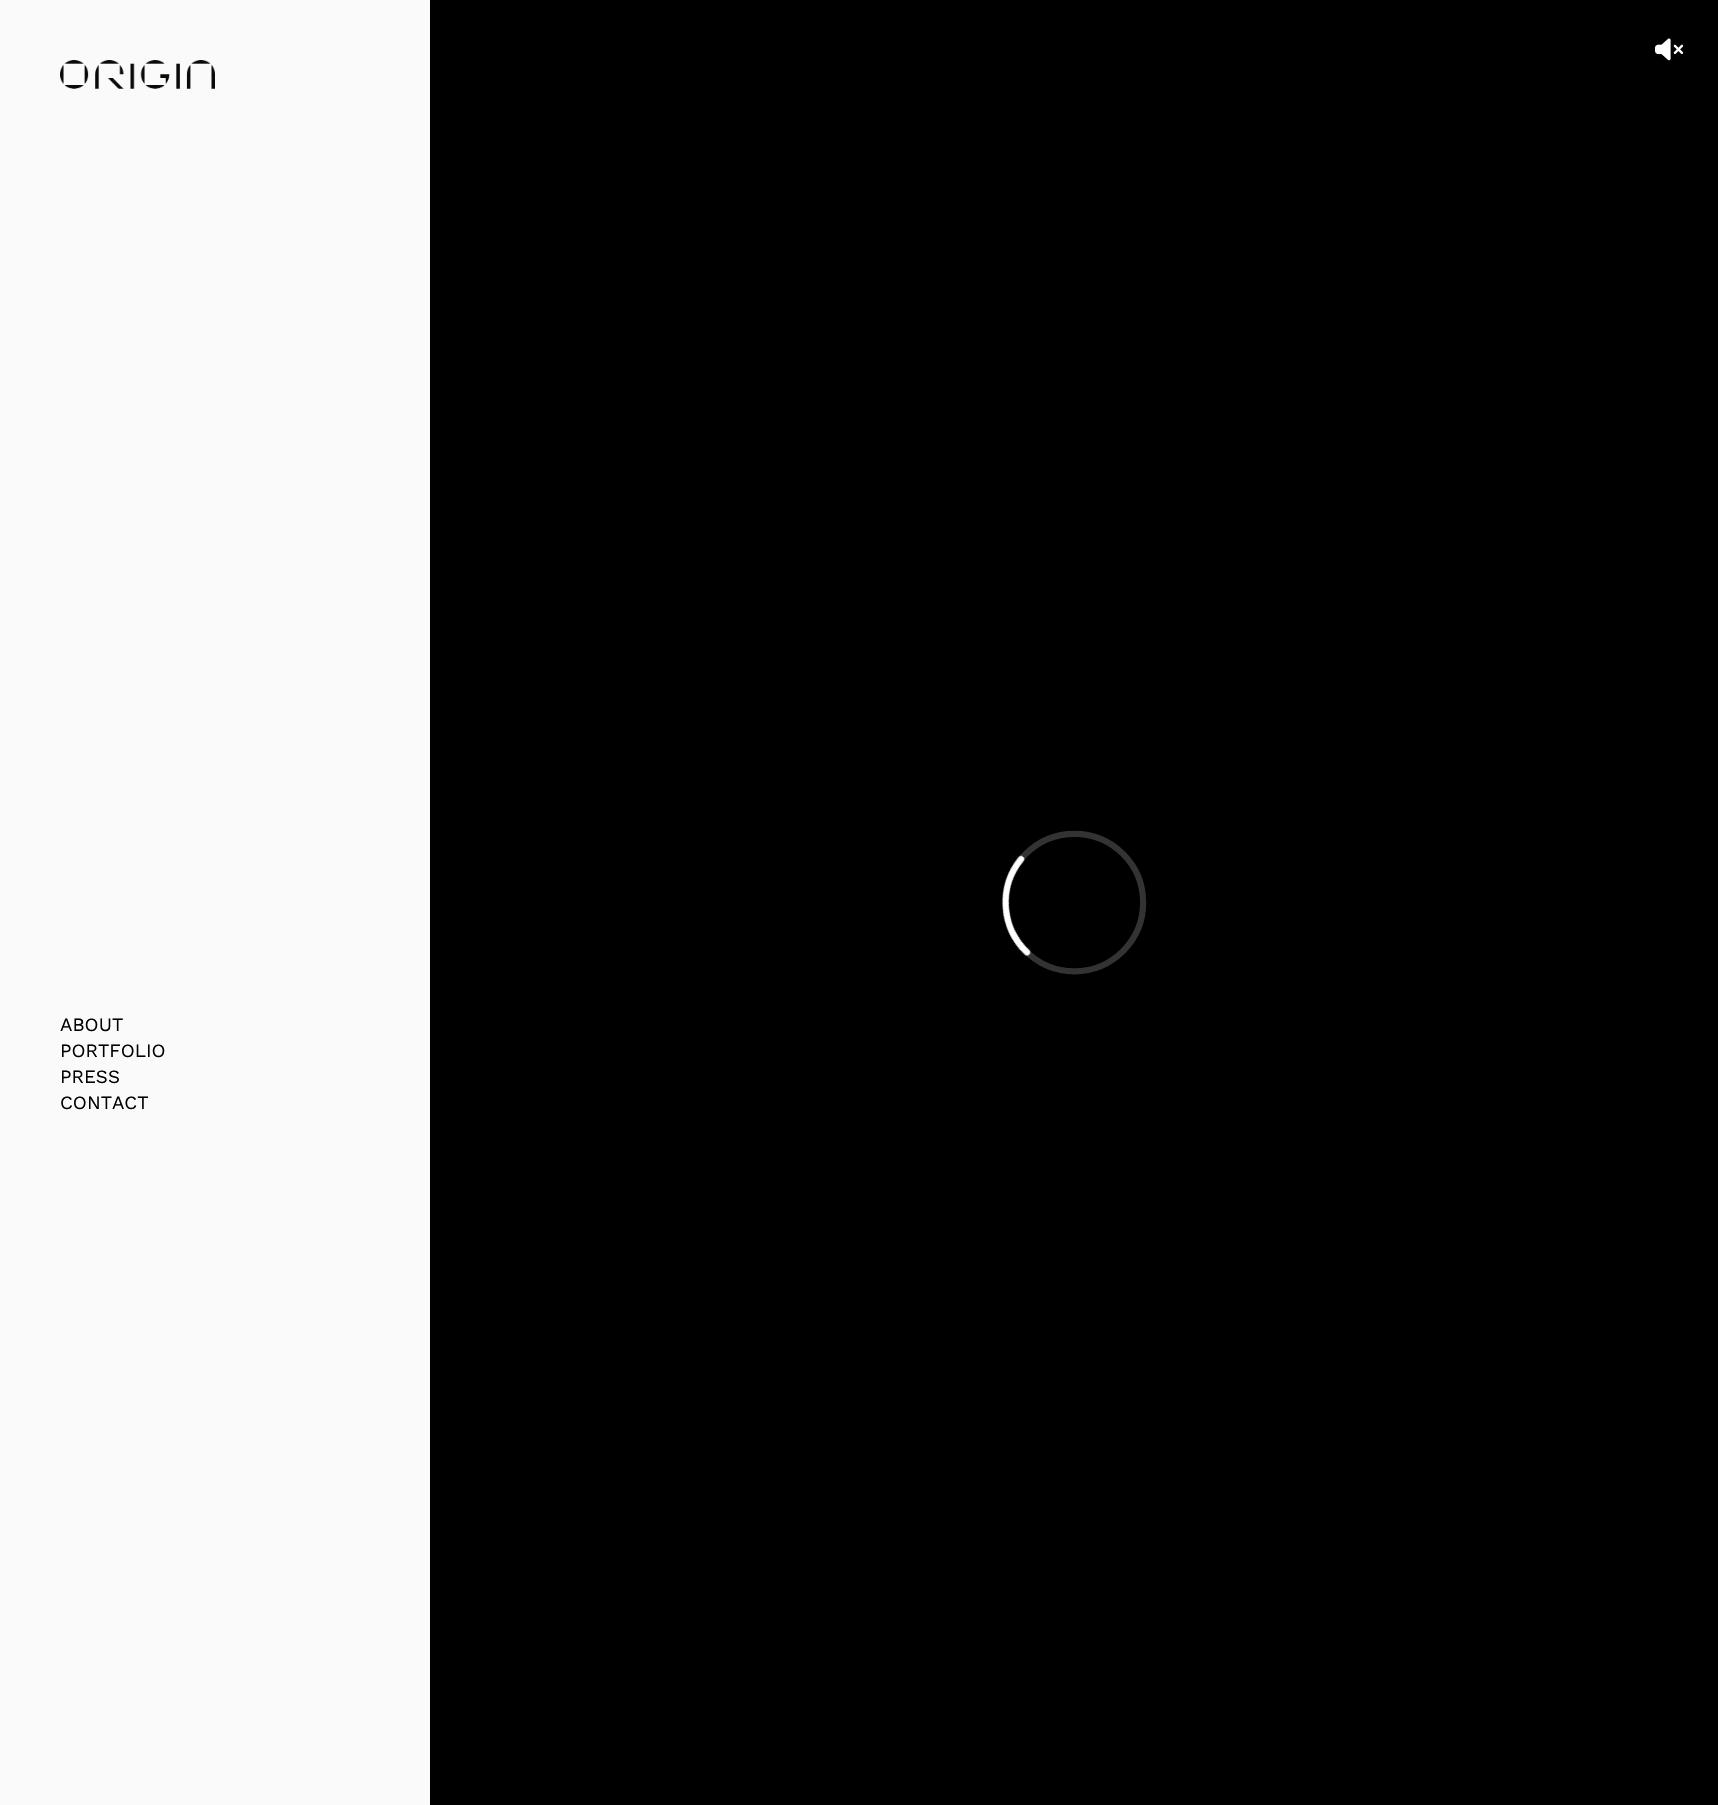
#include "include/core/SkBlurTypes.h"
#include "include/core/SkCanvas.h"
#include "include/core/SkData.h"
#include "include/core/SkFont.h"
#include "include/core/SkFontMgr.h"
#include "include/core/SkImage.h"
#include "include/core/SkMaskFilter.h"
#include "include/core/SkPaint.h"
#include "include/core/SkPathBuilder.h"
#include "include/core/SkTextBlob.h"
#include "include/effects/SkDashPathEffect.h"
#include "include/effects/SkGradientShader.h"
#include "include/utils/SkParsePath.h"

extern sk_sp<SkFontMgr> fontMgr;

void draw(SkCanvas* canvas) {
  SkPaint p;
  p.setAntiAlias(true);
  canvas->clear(SK_ColorWHITE);
  p.setColor(SkColorSetRGB(250, 250, 250));
  canvas->drawRect(SkRect::MakeLTRB(0, 0, 430, 1805), p);
  canvas->drawImageRect(SkImages::DeferredFromEncodedData(SkData::MakeFromFileName("images/1.png")), SkRect::MakeLTRB(60, 60, 215, 89), SkSamplingOptions());
  canvas->drawImageRect(SkImages::DeferredFromEncodedData(SkData::MakeFromFileName("images/2.png")), SkRect::MakeLTRB(430, 0, 1718, 1805), SkSamplingOptions());
  canvas->drawImageRect(SkImages::DeferredFromEncodedData(SkData::MakeFromFileName("images/3.png")), SkRect::MakeLTRB(1655, 38, 1684, 61), SkSamplingOptions());
  SkFont font1(fontMgr->matchFamilyStyle("Work Sans", SkFontStyle::Normal()), 18.75f);
  font1.setSubpixel(true);
  p.setColor(SK_ColorBLACK);
  canvas->drawString("ABOUT", 60, 1031, font1, p);
  canvas->drawString("PORTFOLIO", 60, 1057, font1, p);
  canvas->drawString("PRESS", 60, 1083, font1, p);
  canvas->drawString("CONTACT", 60, 1109, font1, p);
}
